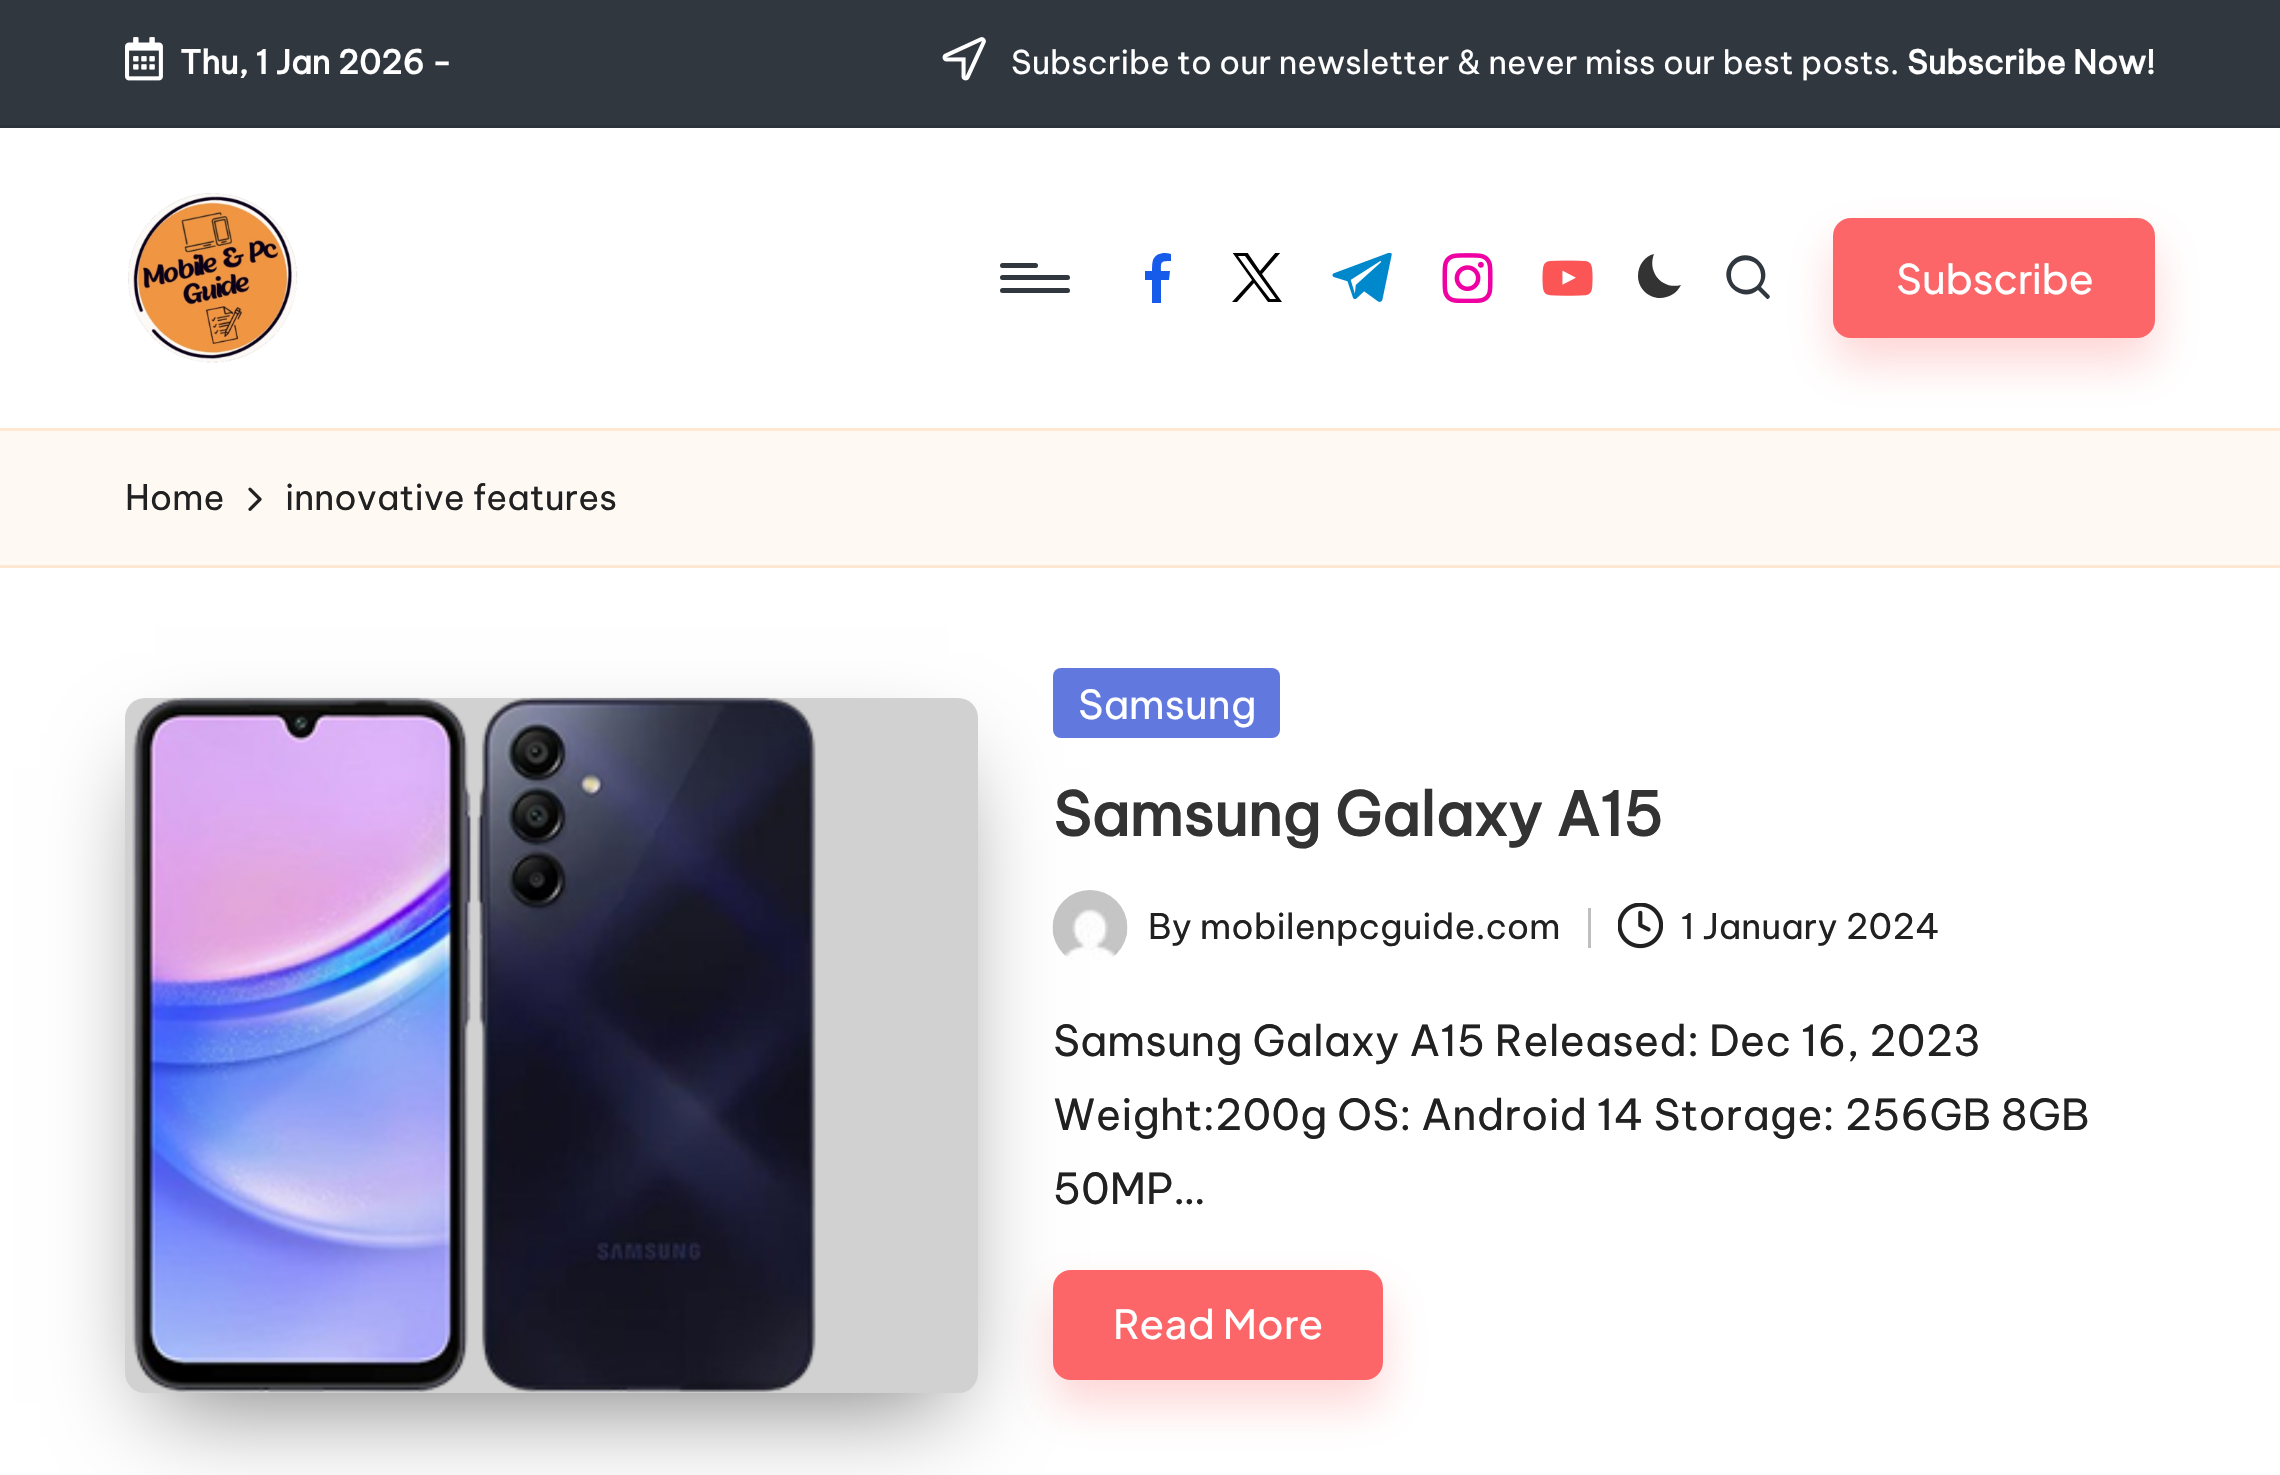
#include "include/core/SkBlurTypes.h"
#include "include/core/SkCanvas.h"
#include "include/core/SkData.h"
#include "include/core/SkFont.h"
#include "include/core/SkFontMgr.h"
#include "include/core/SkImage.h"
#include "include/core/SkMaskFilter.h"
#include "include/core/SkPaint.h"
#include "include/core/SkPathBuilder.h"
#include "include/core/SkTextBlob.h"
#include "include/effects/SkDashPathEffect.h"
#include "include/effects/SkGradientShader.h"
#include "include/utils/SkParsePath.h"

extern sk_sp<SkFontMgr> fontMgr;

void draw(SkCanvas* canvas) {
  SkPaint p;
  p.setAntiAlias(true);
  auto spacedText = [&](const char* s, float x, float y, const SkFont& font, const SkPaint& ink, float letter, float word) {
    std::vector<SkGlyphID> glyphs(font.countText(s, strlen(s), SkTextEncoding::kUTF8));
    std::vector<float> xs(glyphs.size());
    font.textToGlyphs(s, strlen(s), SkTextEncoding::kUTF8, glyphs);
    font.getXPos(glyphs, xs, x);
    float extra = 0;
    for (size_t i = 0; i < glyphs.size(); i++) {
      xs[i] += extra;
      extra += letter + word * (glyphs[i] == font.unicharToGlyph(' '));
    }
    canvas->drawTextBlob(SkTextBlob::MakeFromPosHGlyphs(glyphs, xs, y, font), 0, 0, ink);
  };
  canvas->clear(SK_ColorWHITE);
  p.setColor(SkColorSetRGB(48, 55, 62));
  canvas->drawRect(SkRect::MakeLTRB(0, 0, 2280, 125), p);
  p.setColor(SkColorSetRGB(44, 50, 57));
  canvas->drawRect(SkRect::MakeLTRB(0, 125, 2280, 128), p);
  canvas->drawImageRect(SkImages::DeferredFromEncodedData(SkData::MakeFromFileName("images/1.png")), SkRect::MakeLTRB(125, 37, 163, 81), SkSamplingOptions());
  canvas->drawImageRect(SkImages::DeferredFromEncodedData(SkData::MakeFromFileName("images/2.png")), SkRect::MakeLTRB(942, 37, 986, 81), SkSamplingOptions());
  canvas->drawImageRect(SkImages::DeferredFromEncodedData(SkData::MakeFromFileName("images/3.png")), SkRect::MakeLTRB(128, 193, 298, 363), SkSamplingOptions());
  p.setColor(SkColorSetRGB(48, 55, 62));
  canvas->drawRoundRect(SkRect::MakeLTRB(1000, 275, 1070, 280), 2.5f, 2.5f, p);
  canvas->drawRoundRect(SkRect::MakeLTRB(1000, 263, 1038, 268), 2.5f, 2.5f, p);
  canvas->drawRoundRect(SkRect::MakeLTRB(1000, 288, 1070, 293), 2.5f, 2.5f, p);
  p.setColor(SkColorSetRGB(23, 91, 235));
  canvas->drawPath(SkPathBuilder().moveTo(1161, 303).lineTo(1161, 280).lineTo(1169, 280).lineTo(1170, 271).lineTo(1161, 271).cubicTo(1161, 262, 1160, 261, 1171, 261).lineTo(1171, 254).cubicTo(1164, 252, 1156, 253, 1153, 260).cubicTo(1152, 263, 1152, 268, 1152, 271).lineTo(1145, 271).lineTo(1145, 280).lineTo(1152, 280).lineTo(1152, 303).close().detach(), p);
  canvas->save();
  canvas->clipRect(SkRect::MakeLTRB(1228, 253, 1288, 303));
  p.setColor(SK_ColorBLACK);
  canvas->drawPath(SkPathBuilder().moveTo(1262, 274).lineTo(1281, 252).lineTo(1276, 252).lineTo(1260, 271).lineTo(1247, 252).lineTo(1232, 252).lineTo(1252, 280).lineTo(1232, 302).lineTo(1237, 302).lineTo(1254, 283).lineTo(1268, 302).lineTo(1282, 302).close().moveTo(1256, 281).lineTo(1238, 256).lineTo(1245, 256).lineTo(1276, 299).lineTo(1270, 299).close().detach(), p);
  canvas->restore();
  canvas->drawImageRect(SkImages::DeferredFromEncodedData(SkData::MakeFromFileName("images/4.png")), SkRect::MakeLTRB(1332, 253, 1392, 302), SkSamplingOptions());
  canvas->drawImageRect(SkImages::DeferredFromEncodedData(SkData::MakeFromFileName("images/5.png")), SkRect::MakeLTRB(1442, 253, 1493, 303), SkSamplingOptions());
  canvas->drawImageRect(SkImages::DeferredFromEncodedData(SkData::MakeFromFileName("images/6.png")), SkRect::MakeLTRB(1542, 260, 1593, 296), SkSamplingOptions());
  p.setColor(SkColorSetRGB(51, 51, 51));
  canvas->drawPath(SkPathBuilder().moveTo(1681, 285).cubicTo(1662, 290, 1647, 272, 1654, 254).cubicTo(1645, 256, 1638, 265, 1638, 276).cubicTo(1638, 288, 1648, 298, 1660, 298).cubicTo(1669, 298, 1677, 293, 1681, 285).close().detach(), p);
  p.setColor(SkColorSetRGB(48, 55, 62));
  canvas->drawPath(SkPathBuilder(SkPathFillType::kEvenOdd).moveTo(1769, 295).lineTo(1761, 287).cubicTo(1776, 269, 1750, 244, 1732, 261).cubicTo(1715, 279, 1740, 305, 1758, 290).lineTo(1767, 299).cubicTo(1769, 299, 1771, 297, 1769, 295).close().moveTo(1731, 275).cubicTo(1731, 256, 1760, 255, 1761, 275).cubicTo(1762, 294, 1731, 295, 1731, 275).close().detach(), p);
  p.setColor(SkColorSetRGB(255, 249, 243));
  canvas->drawRect(SkRect::MakeLTRB(0, 431, 2280, 565), p);
  p.setColor(SkColorSetRGB(255, 231, 210));
  canvas->drawRect(SkRect::MakeLTRB(0, 428, 2280, 431), p);
  p.setColor(SkColorSetARGB(69, 252, 102, 104));
  p.setMaskFilter(SkMaskFilter::MakeBlur(kNormal_SkBlurStyle, 22.5f));
  canvas->drawRoundRect(SkRect::MakeLTRB(1833, 243, 2155, 363), 18, 18, p);
  p.setMaskFilter(nullptr);
  p.setColor(SkColorSetRGB(252, 102, 104));
  canvas->drawRoundRect(SkRect::MakeLTRB(1834.5f, 219.5f, 2153.5f, 336.5f), 16.5f, 16.5f, p);
  p.setStyle(SkPaint::kStroke_Style);
  p.setStrokeWidth(3);
  canvas->drawRoundRect(SkRect::MakeLTRB(1834.5f, 219.5f, 2153.5f, 336.5f), 16.5f, 16.5f, p);
  p.setStyle(SkPaint::kFill_Style);
  p.setColor(SkColorSetRGB(255, 231, 210));
  canvas->drawRect(SkRect::MakeLTRB(0, 565, 2280, 568), p);
  canvas->drawImageRect(SkImages::DeferredFromEncodedData(SkData::MakeFromFileName("images/7.png")), SkRect::MakeLTRB(248, 487, 262, 511), SkSamplingOptions());
  p.setColor(SkColorSetRGB(97, 120, 223));
  canvas->drawRoundRect(SkRect::MakeLTRB(1053, 668, 1280, 738), 8, 8, p);
  canvas->drawImageRect(SkImages::DeferredFromEncodedData(SkData::MakeFromFileName("images/9.png")), SkRect::MakeLTRB(1052, 890, 1128, 960), SkSamplingOptions());
  canvas->save();
  canvas->clipPath(SkPathBuilder(SkPathFillType::kEvenOdd).moveTo(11, 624).lineTo(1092, 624).lineTo(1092, 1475).lineTo(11, 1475).close().moveTo(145, 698).lineTo(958, 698).cubicTo(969, 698, 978, 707, 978, 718).lineTo(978, 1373).cubicTo(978, 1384, 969, 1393, 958, 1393).lineTo(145, 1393).cubicTo(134, 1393, 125, 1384, 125, 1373).lineTo(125, 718).cubicTo(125, 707, 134, 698, 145, 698).close().detach(), true);
  p.setColor(SkColorSetARGB(128, 0, 0, 0));
  p.setMaskFilter(SkMaskFilter::MakeBlur(kNormal_SkBlurStyle, 47.5f));
  canvas->drawRect(SkRect::MakeLTRB(155, 768, 948, 1403), p);
  p.setMaskFilter(nullptr);
  canvas->restore();
  p.setColor(SkColorSetARGB(46, 0, 0, 0));
  canvas->drawRoundRect(SkRect::MakeLTRB(125, 698, 978, 1393), 20, 20, p);
  canvas->drawImageRect(SkImages::DeferredFromEncodedData(SkData::MakeFromFileName("images/8.png")), SkRect::MakeLTRB(132, 697, 816, 1393), SkSamplingOptions());
  p.setColor(SkColorSetRGB(191, 191, 191));
  canvas->drawRect(SkRect::MakeLTRB(1588, 908, 1591, 948), p);
  canvas->drawImageRect(SkImages::DeferredFromEncodedData(SkData::MakeFromFileName("images/10.png")), SkRect::MakeLTRB(1618, 903, 1663, 949), SkSamplingOptions());
  p.setColor(SkColorSetARGB(69, 252, 102, 104));
  p.setMaskFilter(SkMaskFilter::MakeBlur(kNormal_SkBlurStyle, 22.5f));
  canvas->drawRoundRect(SkRect::MakeLTRB(1053, 1295, 1383, 1405), 18, 18, p);
  p.setMaskFilter(nullptr);
  p.setColor(SkColorSetRGB(252, 102, 104));
  canvas->drawRoundRect(SkRect::MakeLTRB(1053, 1270, 1383, 1380), 18, 18, p);
  SkFont font1(fontMgr->matchFamilyStyle("Be Vietnam Pro", SkFontStyle::Bold()), 32.5f);
  font1.setSubpixel(true);
  p.setColor(SK_ColorWHITE);
  canvas->drawString("Thu, 1 Jan 2026 -", 180, 74, font1, p);
  SkFont font2(fontMgr->matchFamilyStyle("Be Vietnam Pro", SkFontStyle::Normal()), 32.5f);
  font2.setSubpixel(true);
  canvas->drawString("Subscribe to our newsletter & never miss our best posts.", 1011, 74, font2, p);
  canvas->drawString("Subscribe Now!", 1907, 74, font1, p);
  SkFont font3(fontMgr->matchFamilyStyle("Plus Jakarta Sans", SkFontStyle(500, SkFontStyle::kNormal_Width, SkFontStyle::kUpright_Slant)), 40.5f);
  font3.setSubpixel(true);
  canvas->drawString("Subscribe", 1896, 294, font3, p);
  SkFont font4(fontMgr->matchFamilyStyle("Be Vietnam Pro", SkFontStyle::Normal()), 35);
  font4.setSubpixel(true);
  p.setColor(SkColorSetRGB(33, 33, 33));
  canvas->drawString("Home", 125, 510, font4, p);
  canvas->drawString("innovative features", 285, 510, font4, p);
  SkFont font5(fontMgr->matchFamilyStyle("Be Vietnam Pro", SkFontStyle::Normal()), 40);
  font5.setSubpixel(true);
  p.setColor(SK_ColorWHITE);
  canvas->drawString("Samsung", 1078, 719, font5, p);
  SkFont font6(fontMgr->matchFamilyStyle("Be Vietnam Pro", SkFontStyle::Bold()), 60);
  font6.setSubpixel(true);
  p.setColor(SkColorSetRGB(51, 51, 51));
  canvas->drawString("Samsung Galaxy A15", 1053, 836, font6, p);
  p.setColor(SkColorSetRGB(33, 33, 33));
  canvas->drawString("By mobilenpcguide.com", 1148, 939, font4, p);
  canvas->drawString("1 January 2024", 1681, 939, font4, p);
  SkFont font7(fontMgr->matchFamilyStyle("Be Vietnam Pro", SkFontStyle::Normal()), 42.5f);
  font7.setSubpixel(true);
  canvas->drawString("Samsung Galaxy A15 Released: Dec 16, 2023", 1053, 1056, font7, p);
  canvas->drawString("Weight:200g OS: Android 14 Storage: 256GB 8GB", 1053, 1130, font7, p);
  canvas->drawString("50MP…", 1053, 1204, font7, p);
  SkFont font8(fontMgr->matchFamilyStyle("Plus Jakarta Sans", SkFontStyle(500, SkFontStyle::kNormal_Width, SkFontStyle::kUpright_Slant)), 40);
  font8.setSubpixel(true);
  p.setColor(SK_ColorWHITE);
  spacedText("Read More", 1113, 1339, font8, p, 0.5f, 0);
}
